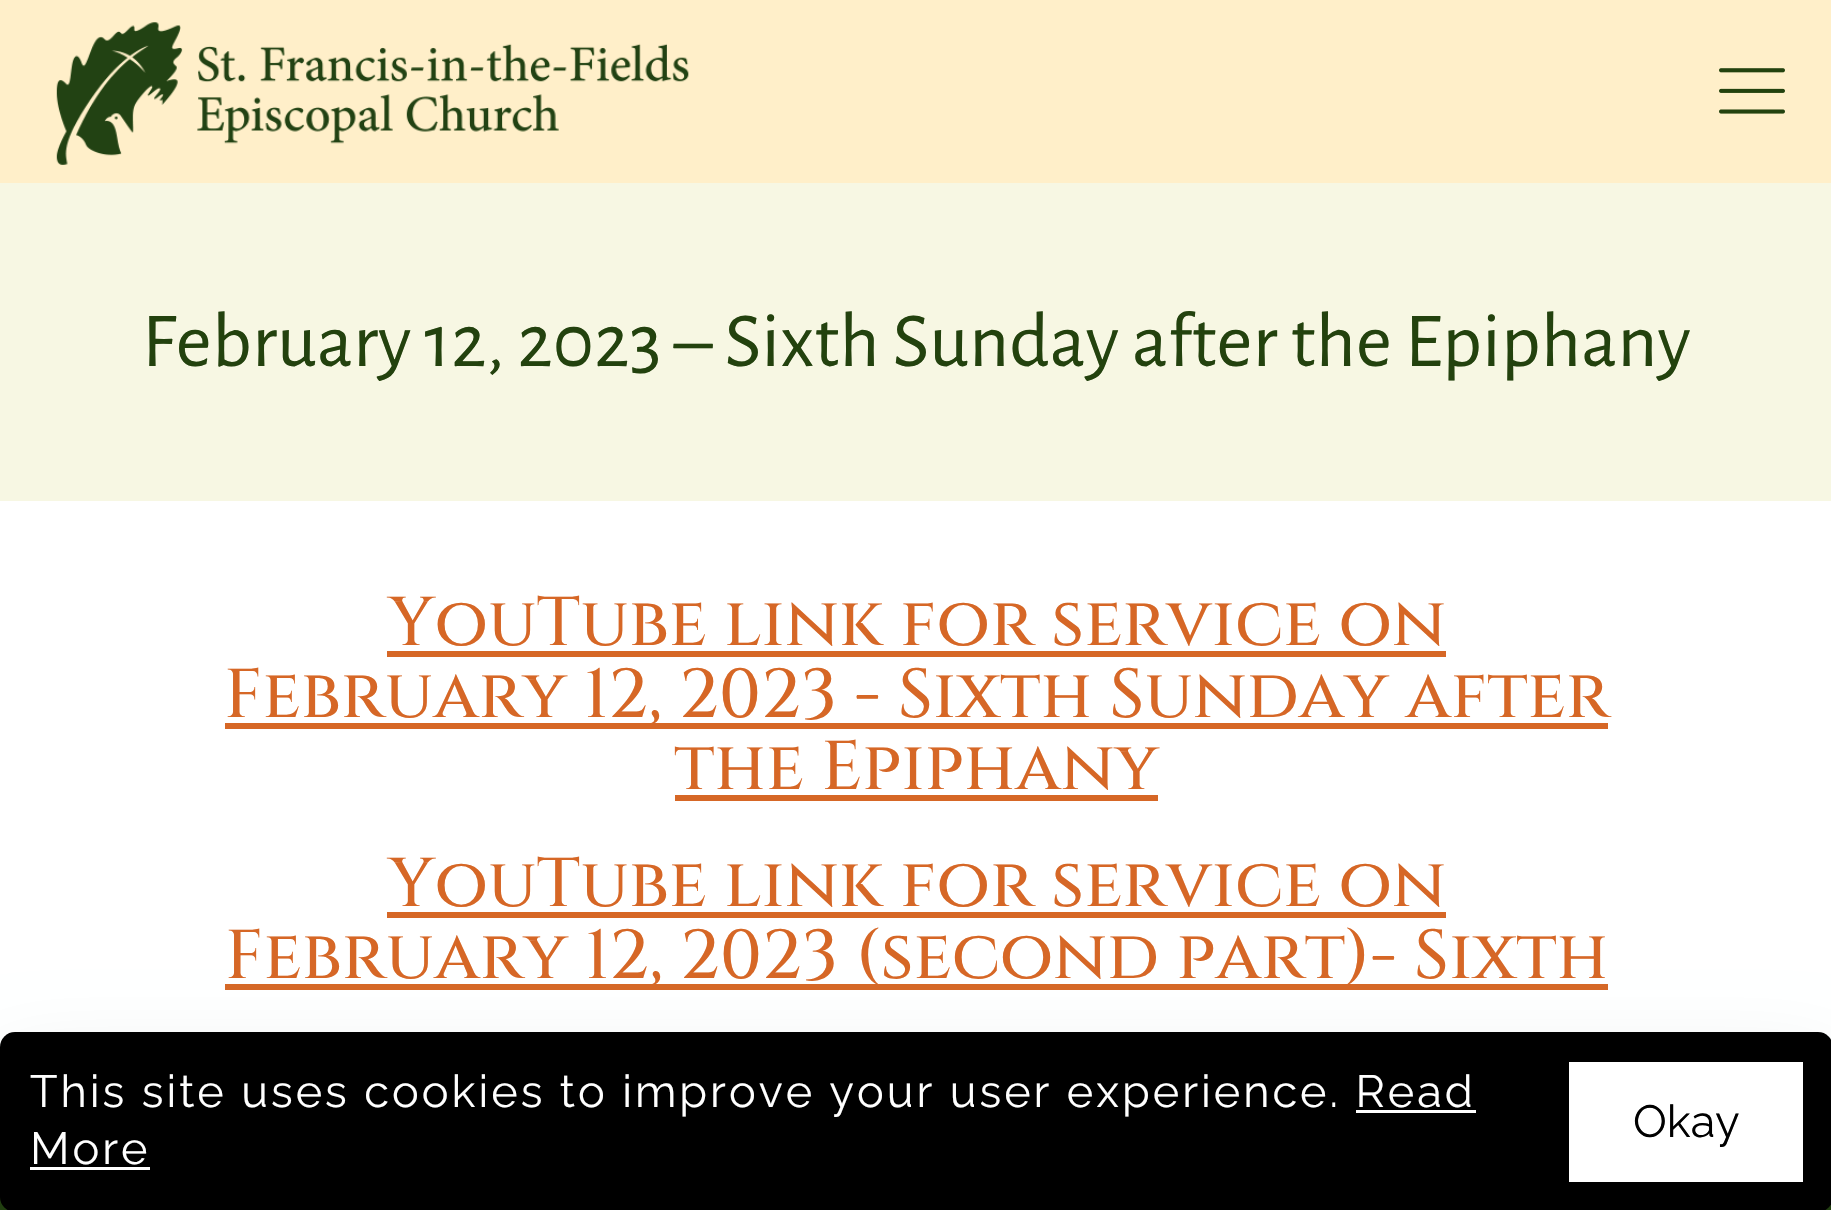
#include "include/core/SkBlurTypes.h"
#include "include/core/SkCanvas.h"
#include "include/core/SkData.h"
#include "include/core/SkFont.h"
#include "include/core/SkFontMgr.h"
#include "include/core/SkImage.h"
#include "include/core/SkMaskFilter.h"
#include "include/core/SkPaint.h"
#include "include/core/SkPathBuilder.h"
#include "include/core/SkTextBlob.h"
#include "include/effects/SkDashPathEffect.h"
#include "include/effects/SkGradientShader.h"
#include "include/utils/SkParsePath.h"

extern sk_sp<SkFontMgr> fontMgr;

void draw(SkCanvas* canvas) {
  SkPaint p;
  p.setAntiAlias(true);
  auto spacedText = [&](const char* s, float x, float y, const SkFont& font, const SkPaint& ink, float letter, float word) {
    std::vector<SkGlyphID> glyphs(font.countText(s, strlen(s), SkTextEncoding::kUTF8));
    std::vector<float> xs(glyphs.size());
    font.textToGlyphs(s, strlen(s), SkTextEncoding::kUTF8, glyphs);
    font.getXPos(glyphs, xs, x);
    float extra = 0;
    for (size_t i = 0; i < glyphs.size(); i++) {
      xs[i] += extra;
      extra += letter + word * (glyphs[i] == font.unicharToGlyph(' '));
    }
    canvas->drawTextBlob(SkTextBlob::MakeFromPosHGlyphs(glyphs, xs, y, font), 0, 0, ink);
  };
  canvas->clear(SK_ColorWHITE);
  p.setColor(SkColorSetRGB(255, 239, 201));
  canvas->drawRect(SkRect::MakeLTRB(0, 0, 1831, 183), p);
  canvas->drawImageRect(SkImages::DeferredFromEncodedData(SkData::MakeFromFileName("images/1.png")), SkRect::MakeLTRB(56, 22, 689, 165), SkSamplingOptions());
  canvas->drawImageRect(SkImages::DeferredFromEncodedData(SkData::MakeFromFileName("images/2.png")), SkRect::MakeLTRB(1719, 68, 1785, 114), SkSamplingOptions());
  p.setColor(SkColorSetRGB(247, 247, 227));
  canvas->drawRect(SkRect::MakeLTRB(0, 183, 1831, 501), p);
  p.setColor(SkColorSetRGB(214, 103, 38));
  canvas->drawRect(SkRect::MakeLTRB(387, 651, 1446, 657), p);
  canvas->drawRect(SkRect::MakeLTRB(225, 723, 1608, 729), p);
  canvas->drawRect(SkRect::MakeLTRB(675, 795, 1158, 801), p);
  canvas->drawRect(SkRect::MakeLTRB(387, 912, 1446, 918), p);
  canvas->drawRect(SkRect::MakeLTRB(225, 984, 1608, 990), p);
  p.setColor(SkColorSetRGB(35, 66, 14));
  canvas->drawRect(SkRect::MakeLTRB(0, 1197, 1831, 1210), p);
  p.setColor(SkColorSetARGB(33, 1, 7, 39));
  p.setMaskFilter(SkMaskFilter::MakeBlur(kNormal_SkBlurStyle, 45));
  canvas->drawRoundRect(SkRect::MakeLTRB(0, 1077, 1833, 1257), 15, 15, p);
  p.setMaskFilter(nullptr);
  p.setColor(SK_ColorBLACK);
  canvas->drawRoundRect(SkRect::MakeLTRB(0, 1032, 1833, 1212), 15, 15, p);
  p.setColor(SK_ColorWHITE);
  canvas->drawRect(SkRect::MakeLTRB(1356, 1110, 1476, 1113), p);
  canvas->drawRect(SkRect::MakeLTRB(30, 1167, 150, 1170), p);
  canvas->drawRect(SkRect::MakeLTRB(1569, 1062, 1803, 1182), p);
  SkFont font1(fontMgr->matchFamilyStyle("Alegreya Sans", SkFontStyle::Normal()), 78);
  font1.setSubpixel(true);
  p.setColor(SkColorSetRGB(35, 66, 14));
  canvas->drawString("February 12, 2023 – Sixth Sunday after the Epiphany", 142, 366, font1, p);
  SkFont font2(fontMgr->matchFamilyStyle("Cinzel", SkFontStyle(500, SkFontStyle::kNormal_Width, SkFontStyle::kUpright_Slant)), 69);
  font2.setSubpixel(true);
  p.setColor(SkColorSetRGB(214, 103, 38));
  canvas->drawString("YouTube link for service on", 388, 645, font2, p);
  canvas->drawString("February 12, 2023 - Sixth Sunday after", 224, 717, font2, p);
  canvas->drawString("the Epiphany", 674, 789, font2, p);
  canvas->drawString("YouTube link for service on", 388, 906, font2, p);
  canvas->drawString("February 12, 2023 (second part)- Sixth", 225, 978, font2, p);
  SkFont font3(fontMgr->matchFamilyStyle("Raleway", SkFontStyle::Normal()), 45);
  font3.setSubpixel(true);
  p.setColor(SK_ColorWHITE);
  spacedText("This site uses cookies to improve your user experience. Read", 30, 1107, font3, p, 3, 0);
  spacedText("More", 30, 1164, font3, p, 3, 0);
  p.setColor(SK_ColorBLACK);
  canvas->drawString("Okay", 1633, 1137, font3, p);
}
